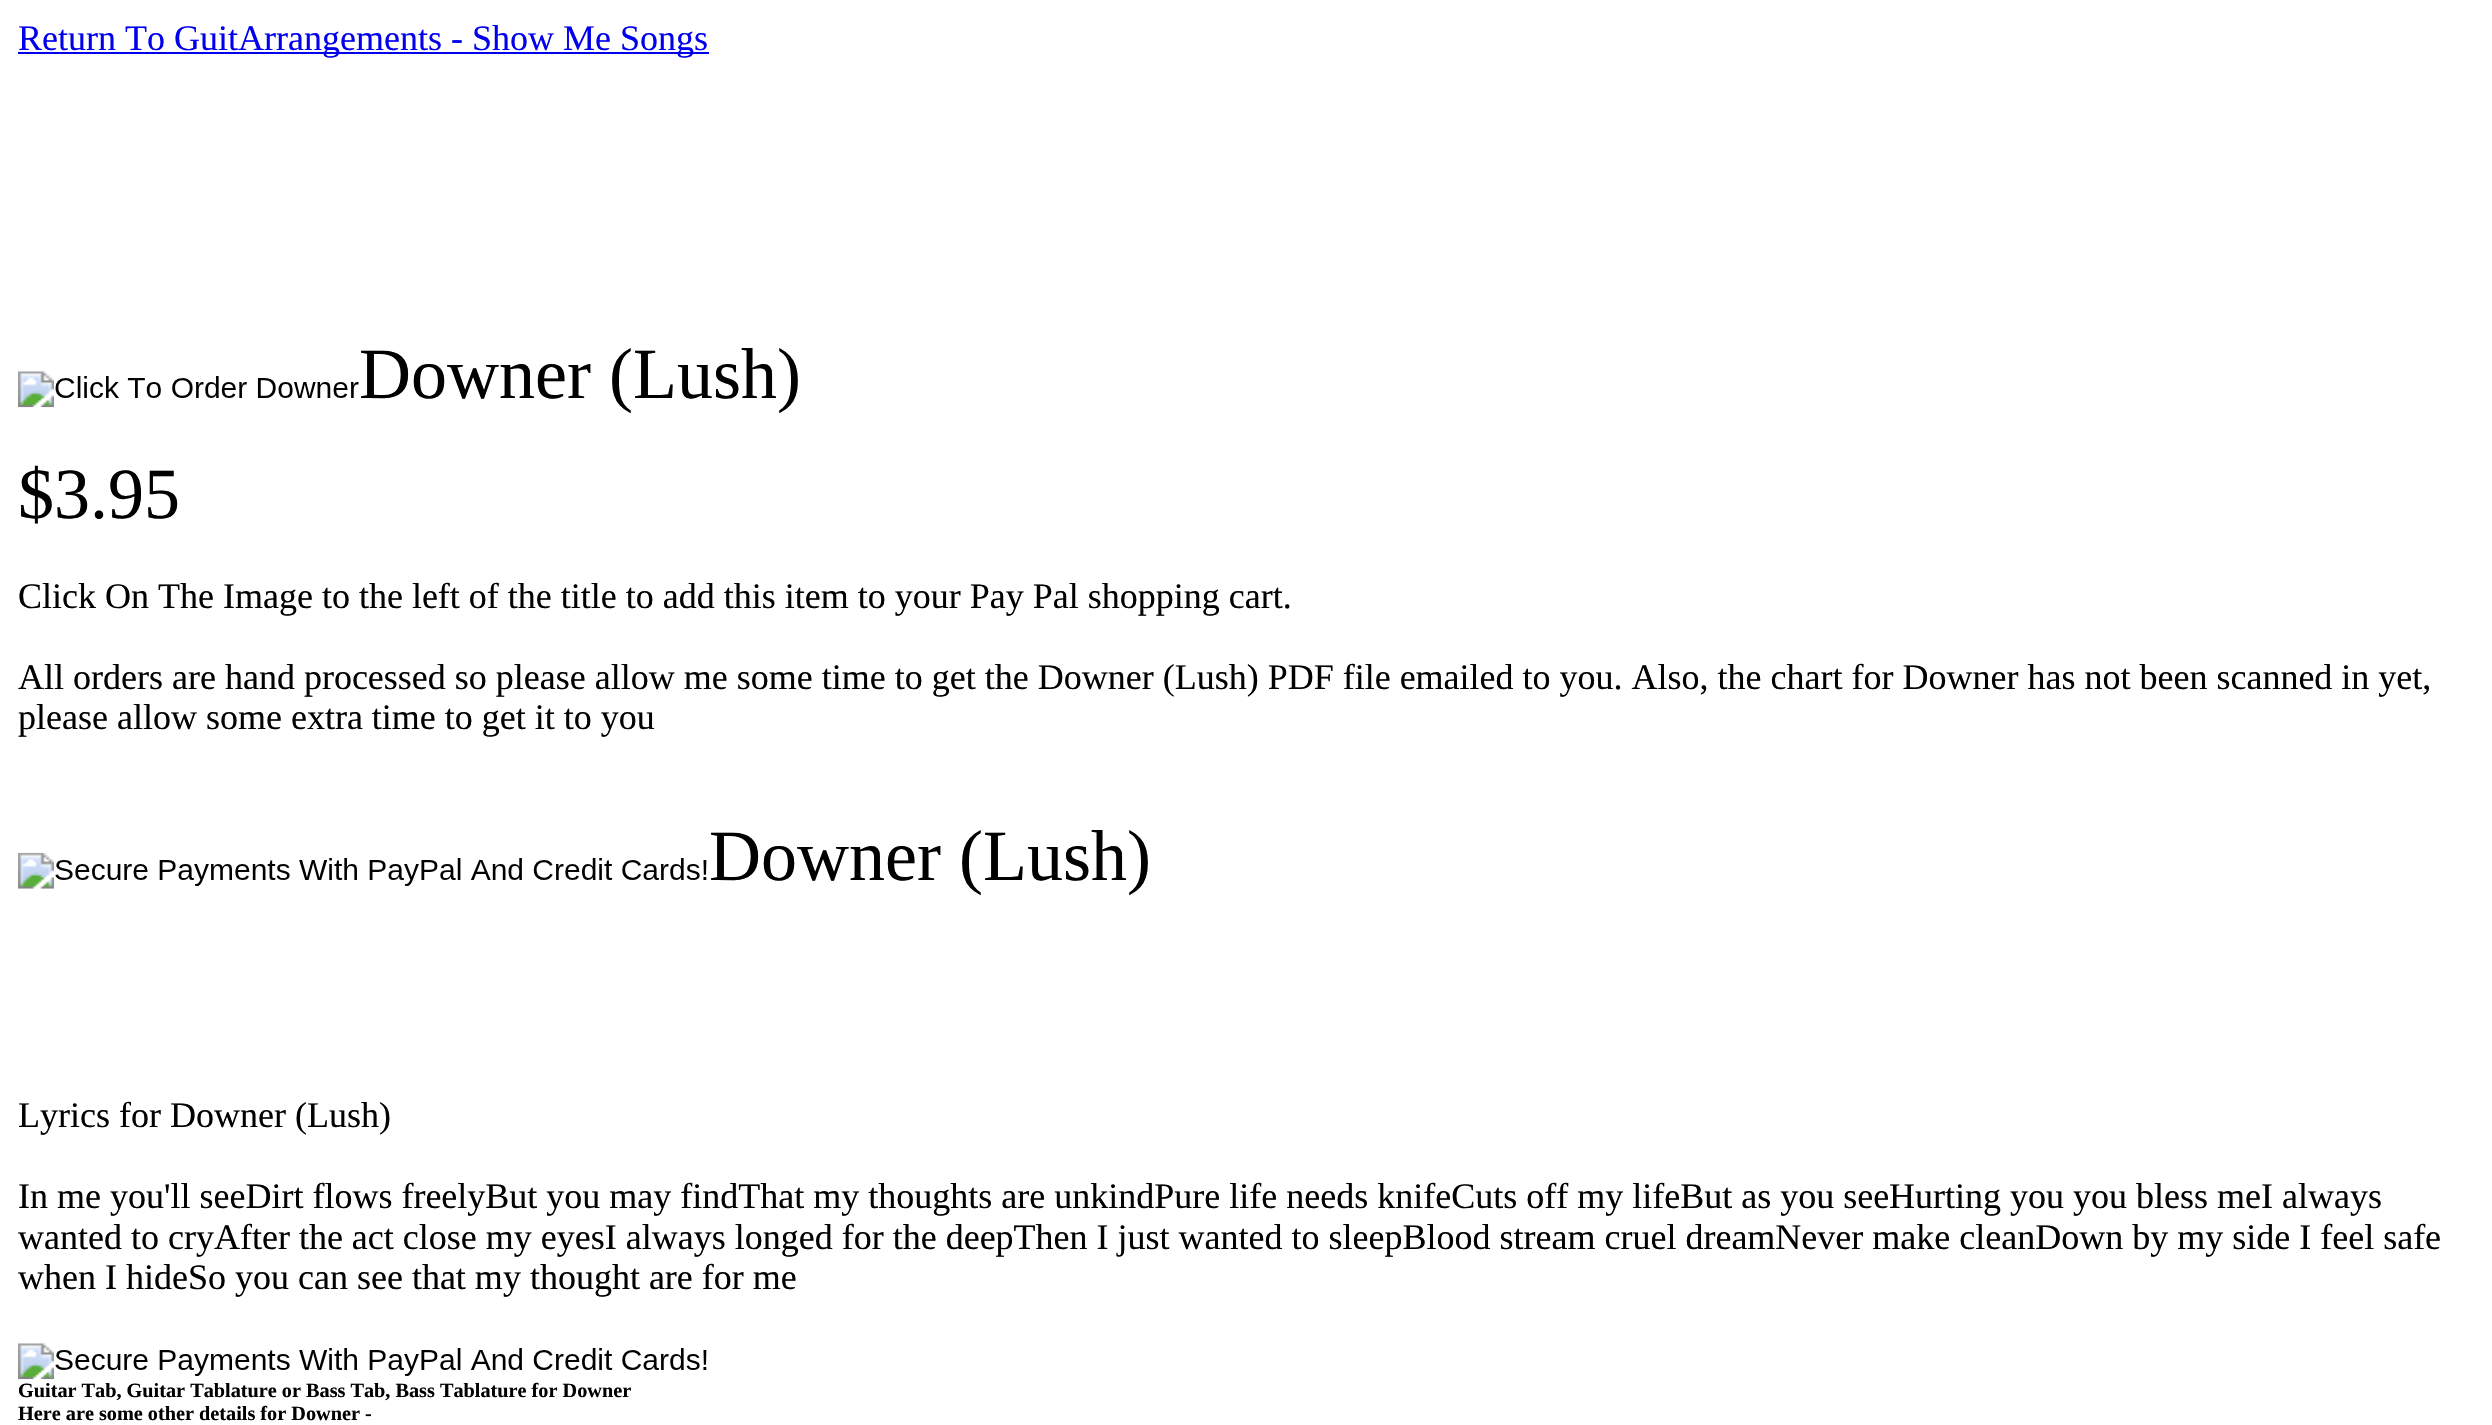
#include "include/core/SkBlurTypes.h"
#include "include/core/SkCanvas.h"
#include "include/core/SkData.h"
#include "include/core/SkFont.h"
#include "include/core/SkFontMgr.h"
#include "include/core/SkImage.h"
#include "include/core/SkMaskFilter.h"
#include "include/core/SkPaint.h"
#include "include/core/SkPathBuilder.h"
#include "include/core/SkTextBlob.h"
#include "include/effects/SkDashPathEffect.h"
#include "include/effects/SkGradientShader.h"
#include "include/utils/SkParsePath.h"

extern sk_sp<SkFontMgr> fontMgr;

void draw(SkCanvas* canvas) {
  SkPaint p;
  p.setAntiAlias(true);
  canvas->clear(SK_ColorWHITE);
  p.setColor(SkColorSetRGB(0, 0, 238));
  canvas->drawRect(SkRect::MakeLTRB(18, 52, 709, 54), p);
  canvas->drawImageRect(SkImages::DeferredFromEncodedData(SkData::MakeFromFileName("images/1.png")), SkRect::MakeLTRB(18, 371, 359, 408), SkSamplingOptions());
  canvas->drawImageRect(SkImages::DeferredFromEncodedData(SkData::MakeFromFileName("images/2.png")), SkRect::MakeLTRB(18, 852, 707, 889), SkSamplingOptions());
  canvas->drawImageRect(SkImages::DeferredFromEncodedData(SkData::MakeFromFileName("images/3.png")), SkRect::MakeLTRB(18, 1343, 707, 1380), SkSamplingOptions());
  SkFont font1(fontMgr->matchFamilyStyle("Liberation Serif", SkFontStyle::Normal()), 36);
  font1.setSubpixel(true);
  canvas->drawString("Return To GuitArrangements - Show Me Songs", 18, 50, font1, p);
  SkFont font2(fontMgr->matchFamilyStyle("Liberation Serif", SkFontStyle::Normal()), 72);
  font2.setSubpixel(true);
  p.setColor(SK_ColorBLACK);
  canvas->drawString("Downer (Lush)", 359, 398, font2, p);
  canvas->drawString("$3.95", 18, 518, font2, p);
  canvas->drawString("Click On The Image to the left of the title to add this item to your Pay Pal shopping cart.", 18, 608, font1, p);
  canvas->drawString("All orders are hand processed so please allow me some time to get the Downer (Lush) PDF file emailed to you. Also, the chart for Downer has not been scanned in yet,", 18, 689, font1, p);
  canvas->drawString("please allow some extra time to get it to you", 18, 729, font1, p);
  canvas->drawString("Downer (Lush)", 709, 880, font2, p);
  canvas->drawString("Lyrics for Downer (Lush)", 18, 1127, font1, p);
  canvas->drawString("In me you'll seeDirt flows freelyBut you may findThat my thoughts are unkindPure life needs knifeCuts off my lifeBut as you seeHurting you you bless meI always", 18, 1208, font1, p);
  canvas->drawString("wanted to cryAfter the act close my eyesI always longed for the deepThen I just wanted to sleepBlood stream cruel dreamNever make cleanDown by my side I feel safe", 18, 1249, font1, p);
  canvas->drawString("when I hideSo you can see that my thought are for me", 18, 1289, font1, p);
  SkFont font3(fontMgr->matchFamilyStyle("Liberation Serif", SkFontStyle::Bold()), 20.25f);
  font3.setSubpixel(true);
  canvas->drawString("Guitar Tab, Guitar Tablature or Bass Tab, Bass Tablature for Downer", 18, 1397, font3, p);
  canvas->drawString("Here are some other details for Downer -", 18, 1420, font3, p);
}
